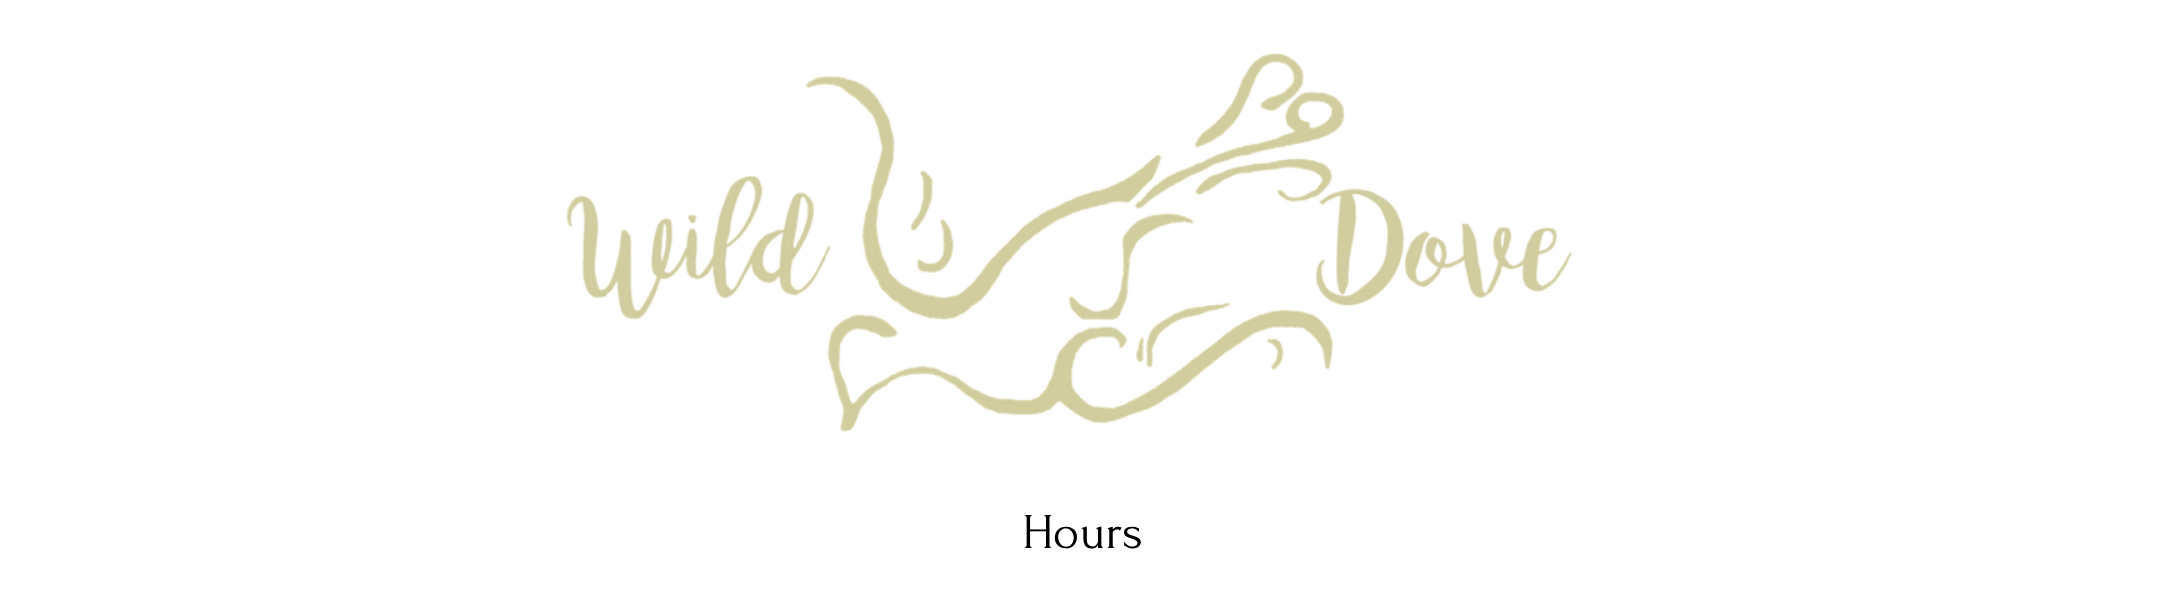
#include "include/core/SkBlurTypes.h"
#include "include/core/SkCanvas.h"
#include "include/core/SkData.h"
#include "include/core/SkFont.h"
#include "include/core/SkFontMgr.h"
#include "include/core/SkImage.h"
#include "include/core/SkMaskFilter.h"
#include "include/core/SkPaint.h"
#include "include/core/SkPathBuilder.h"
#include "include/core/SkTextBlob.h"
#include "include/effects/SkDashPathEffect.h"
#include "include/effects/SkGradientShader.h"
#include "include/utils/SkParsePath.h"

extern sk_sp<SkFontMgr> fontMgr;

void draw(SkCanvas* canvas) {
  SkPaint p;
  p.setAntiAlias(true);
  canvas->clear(SK_ColorWHITE);
  canvas->drawImageRect(SkImages::DeferredFromEncodedData(SkData::MakeFromFileName("images/1.png")), SkRect::MakeLTRB(566, 53, 1573, 432), SkSamplingOptions());
  SkFont font1(fontMgr->matchFamilyStyle("Forum", SkFontStyle::Normal()), 50);
  font1.setSubpixel(true);
  p.setColor(SK_ColorBLACK);
  canvas->drawString("Hours", 1022, 548, font1, p);
}
